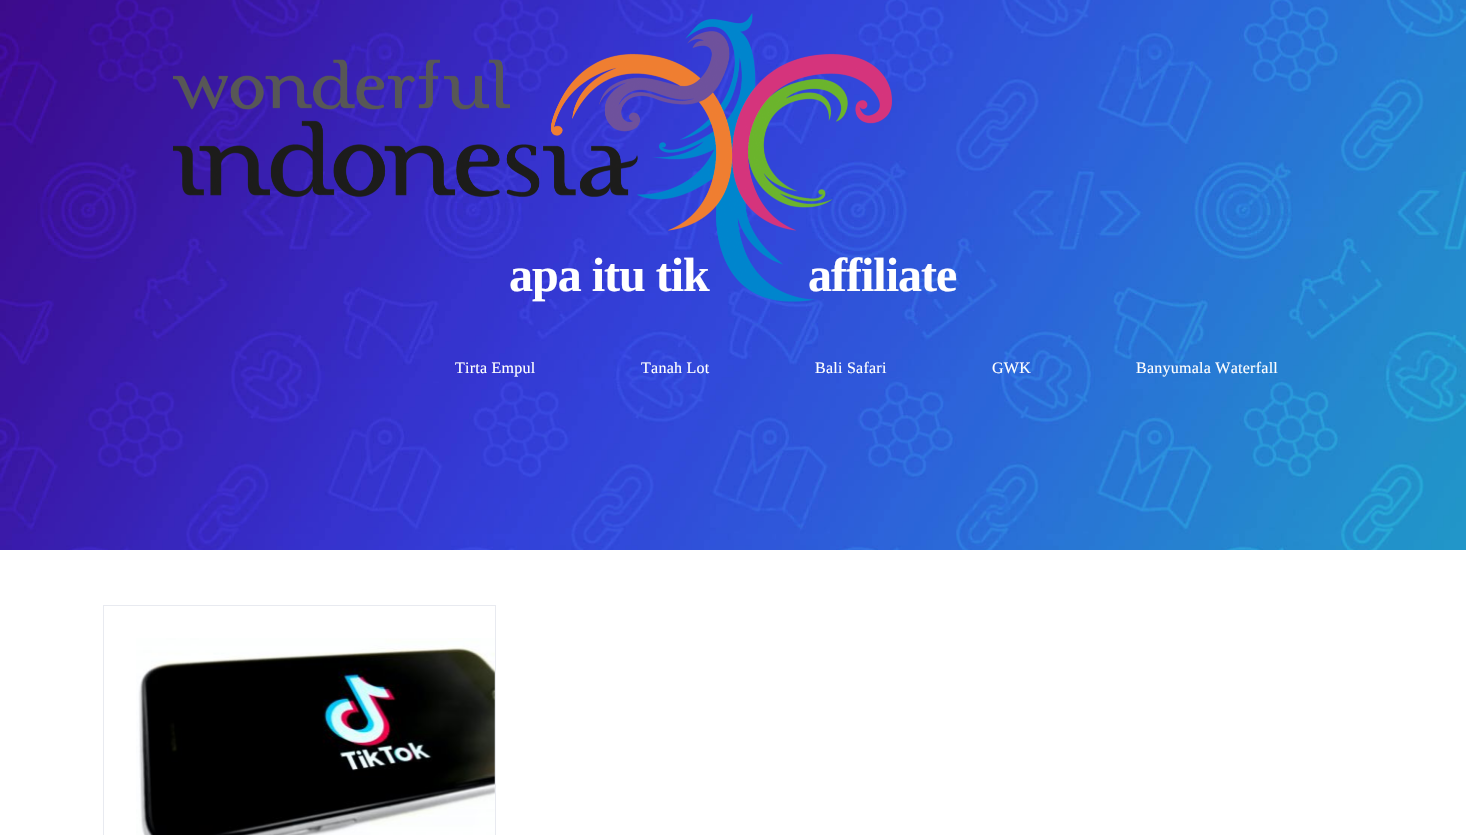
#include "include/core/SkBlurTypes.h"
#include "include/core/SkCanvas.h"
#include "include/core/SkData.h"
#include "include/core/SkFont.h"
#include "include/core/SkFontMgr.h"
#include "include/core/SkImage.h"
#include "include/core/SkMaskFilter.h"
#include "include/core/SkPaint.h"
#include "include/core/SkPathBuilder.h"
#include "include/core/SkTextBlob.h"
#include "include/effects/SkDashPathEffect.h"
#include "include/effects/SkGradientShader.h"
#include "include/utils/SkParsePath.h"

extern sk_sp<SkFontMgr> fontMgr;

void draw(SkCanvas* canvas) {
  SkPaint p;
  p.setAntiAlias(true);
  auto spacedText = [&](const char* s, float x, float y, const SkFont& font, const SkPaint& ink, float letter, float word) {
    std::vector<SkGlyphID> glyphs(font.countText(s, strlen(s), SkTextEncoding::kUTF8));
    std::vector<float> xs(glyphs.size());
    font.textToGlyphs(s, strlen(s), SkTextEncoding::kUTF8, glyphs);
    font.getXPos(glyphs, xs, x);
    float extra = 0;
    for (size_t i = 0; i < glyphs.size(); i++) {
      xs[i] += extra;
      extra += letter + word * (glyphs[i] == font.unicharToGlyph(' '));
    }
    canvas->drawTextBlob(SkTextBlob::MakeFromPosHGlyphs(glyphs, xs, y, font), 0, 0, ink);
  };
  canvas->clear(SK_ColorWHITE);
  canvas->drawImageRect(SkImages::DeferredFromEncodedData(SkData::MakeFromFileName("images/1.png")), SkRect::MakeLTRB(0, 0, 1466, 550), SkSamplingOptions());
  p.setColor(SkColorSetRGB(232, 234, 240));
  canvas->drawRect(SkRect::MakeLTRB(103, 605, 496, 606), p);
  canvas->drawRect(SkRect::MakeLTRB(495, 605, 496, 835), p);
  canvas->drawRect(SkRect::MakeLTRB(103, 605, 104, 835), p);
  canvas->drawImageRect(SkImages::DeferredFromEncodedData(SkData::MakeFromFileName("images/3.png")), SkRect::MakeLTRB(136, 638, 495, 835), SkSamplingOptions());
  SkFont font1(fontMgr->matchFamilyStyle("Liberation Serif", SkFontStyle::Bold()), 48);
  font1.setSubpixel(true);
  p.setColor(SK_ColorWHITE);
  spacedText("apa itu tik", 509, 291, font1, p, -1, 0);
  spacedText("affiliate", 808, 291, font1, p, -1, 0);
  canvas->drawImageRect(SkImages::DeferredFromEncodedData(SkData::MakeFromFileName("images/2.png")), SkRect::MakeLTRB(173, 13, 892, 302), SkSamplingOptions());
  SkFont font2(fontMgr->matchFamilyStyle("Liberation Serif", SkFontStyle::Normal()), 16);
  font2.setSubpixel(true);
  spacedText("Tirta Empul", 455, 373, font2, p, 0.25f, 0);
  spacedText("Tanah Lot", 641, 373, font2, p, 0.25f, 0);
  spacedText("Bali Safari", 815, 373, font2, p, 0.25f, 0);
  spacedText("GWK", 992, 373, font2, p, 0.25f, 0);
  spacedText("Banyumala Waterfall", 1136, 373, font2, p, 0.25f, 0);
}
